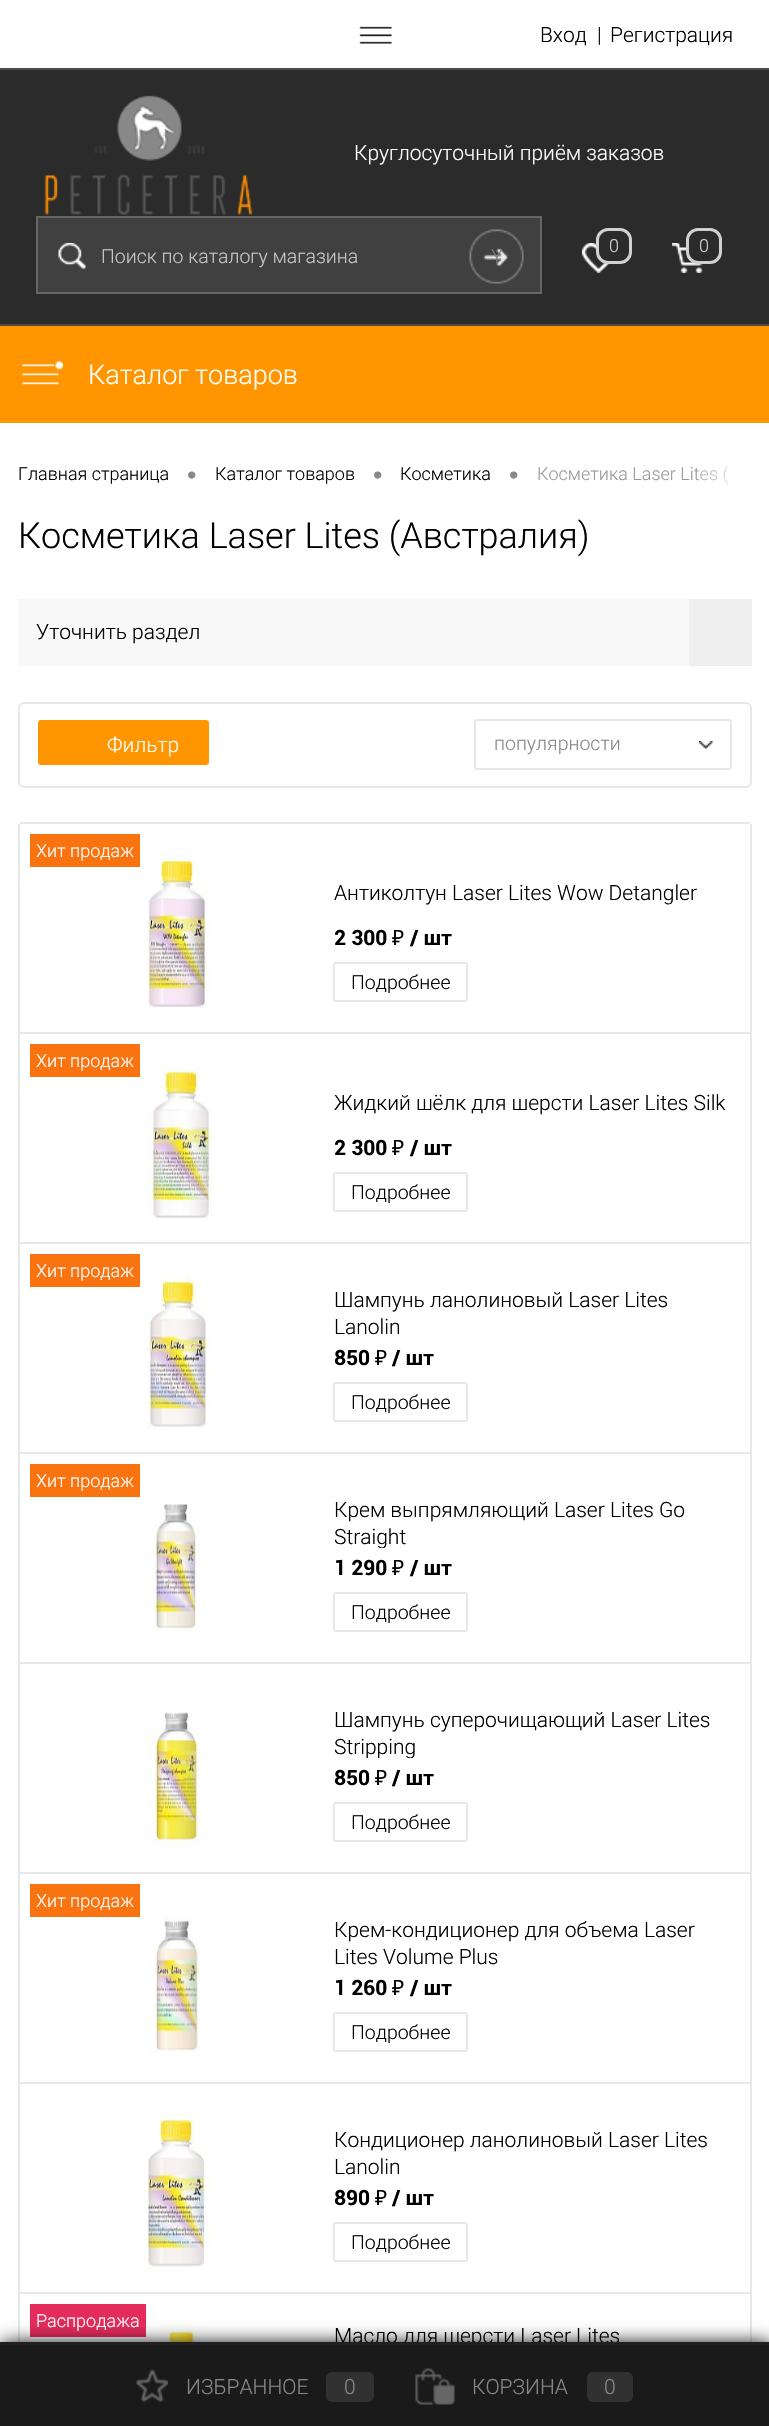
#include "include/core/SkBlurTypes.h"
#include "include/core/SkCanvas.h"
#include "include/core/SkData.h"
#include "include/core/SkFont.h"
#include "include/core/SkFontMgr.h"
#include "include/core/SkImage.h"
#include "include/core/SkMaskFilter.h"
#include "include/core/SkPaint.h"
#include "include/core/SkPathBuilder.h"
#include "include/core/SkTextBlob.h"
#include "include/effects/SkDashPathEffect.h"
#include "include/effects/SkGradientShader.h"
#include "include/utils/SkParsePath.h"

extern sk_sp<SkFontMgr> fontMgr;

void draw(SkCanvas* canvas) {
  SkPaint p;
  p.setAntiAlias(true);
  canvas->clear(SK_ColorWHITE);
  canvas->drawImageRect(SkImages::DeferredFromEncodedData(SkData::MakeFromFileName("images/1.png")), SkRect::MakeLTRB(359, 26, 392, 44), SkSamplingOptions());
  p.setColor(SkColorSetRGB(43, 43, 43));
  canvas->drawRect(SkRect::MakeLTRB(0, 70, 769, 324), p);
  p.setColor(SkColorSetRGB(75, 75, 75));
  canvas->drawRect(SkRect::MakeLTRB(0, 68, 769, 70), p);
  canvas->drawRect(SkRect::MakeLTRB(0, 324, 769, 326), p);
  canvas->drawImageRect(SkImages::DeferredFromEncodedData(SkData::MakeFromFileName("images/2.png")), SkRect::MakeLTRB(44, 95, 253, 215), SkSamplingOptions());
  canvas->drawImageRect(SkImages::DeferredFromEncodedData(SkData::MakeFromFileName("images/3.png")), SkRect::MakeLTRB(582, 243, 610, 273), SkSamplingOptions());
  p.setColor(SkColorSetRGB(43, 43, 43));
  canvas->drawRoundRect(SkRect::MakeLTRB(597.5f, 229.5f, 630.5f, 262.5f), 10.5f, 10.5f, p);
  p.setStyle(SkPaint::kStroke_Style);
  p.setStrokeWidth(3);
  p.setColor(SkColorSetRGB(209, 209, 209));
  canvas->drawRoundRect(SkRect::MakeLTRB(597.5f, 229.5f, 630.5f, 262.5f), 10.5f, 10.5f, p);
  canvas->drawImageRect(SkImages::DeferredFromEncodedData(SkData::MakeFromFileName("images/4.png")), SkRect::MakeLTRB(672, 243, 703, 273), SkSamplingOptions());
  p.setStyle(SkPaint::kFill_Style);
  p.setColor(SkColorSetRGB(43, 43, 43));
  canvas->drawRoundRect(SkRect::MakeLTRB(687.5f, 229.5f, 720.5f, 262.5f), 10.5f, 10.5f, p);
  p.setStyle(SkPaint::kStroke_Style);
  p.setColor(SkColorSetRGB(209, 209, 209));
  canvas->drawRoundRect(SkRect::MakeLTRB(687.5f, 229.5f, 720.5f, 262.5f), 10.5f, 10.5f, p);
  p.setStyle(SkPaint::kFill_Style);
  p.setColor(SkColorSetRGB(64, 64, 64));
  canvas->drawRect(SkRect::MakeLTRB(37, 217, 541, 293), p);
  p.setStyle(SkPaint::kStroke_Style);
  p.setStrokeWidth(2);
  p.setColor(SkColorSetRGB(102, 102, 102));
  canvas->drawRect(SkRect::MakeLTRB(37, 217, 541, 293), p);
  canvas->drawImageRect(SkImages::DeferredFromEncodedData(SkData::MakeFromFileName("images/5.png")), SkRect::MakeLTRB(58, 243, 86, 269), SkSamplingOptions());
  canvas->drawImageRect(SkImages::DeferredFromEncodedData(SkData::MakeFromFileName("images/6.png")), SkRect::MakeLTRB(469, 229, 524, 284), SkSamplingOptions());
  p.setStyle(SkPaint::kFill_Style);
  p.setColor(SkColorSetRGB(255, 150, 1));
  canvas->drawRect(SkRect::MakeLTRB(0, 326, 769, 423), p);
  canvas->drawImageRect(SkImages::DeferredFromEncodedData(SkData::MakeFromFileName("images/7.png")), SkRect::MakeLTRB(22, 361, 63, 385), SkSamplingOptions());
  p.setColor(SkColorSetRGB(248, 248, 248));
  canvas->drawRect(SkRect::MakeLTRB(18, 599, 689, 666), p);
  p.setColor(SkColorSetRGB(239, 239, 239));
  canvas->drawRect(SkRect::MakeLTRB(689, 599, 752, 666), p);
  p.setStyle(SkPaint::kStroke_Style);
  p.setColor(SkColorSetRGB(231, 232, 234));
  canvas->drawRoundRect(SkRect::MakeLTRB(19, 703, 751, 787), 5, 5, p);
  p.setStyle(SkPaint::kFill_Style);
  p.setColor(SkColorSetRGB(255, 150, 1));
  canvas->drawRoundRect(SkRect::MakeLTRB(38, 720, 209, 765), 3, 3, p);
  p.setStyle(SkPaint::kStroke_Style);
  p.setColor(SkColorSetRGB(231, 232, 234));
  canvas->drawRoundRect(SkRect::MakeLTRB(475, 720, 731, 769), 2, 2, p);
  canvas->drawImageRect(SkImages::DeferredFromEncodedData(SkData::MakeFromFileName("images/8.png")), SkRect::MakeLTRB(699, 741, 713, 749), SkSamplingOptions());
  p.setStyle(SkPaint::kFill_Style);
  canvas->drawRect(SkRect::MakeLTRB(18, 824, 20, 2342), p);
  canvas->drawRect(SkRect::MakeLTRB(750, 824, 752, 2342), p);
  canvas->drawRect(SkRect::MakeLTRB(20, 1032, 752, 1034), p);
  canvas->drawRect(SkRect::MakeLTRB(20, 822, 750, 824), p);
  p.setColor(SkColorSetRGB(249, 115, 16));
  canvas->drawRect(SkRect::MakeLTRB(30, 834, 140, 867), p);
  canvas->drawImageRect(SkImages::DeferredFromEncodedData(SkData::MakeFromFileName("images/9.png")), SkRect::MakeLTRB(147, 853, 213, 1009), SkSamplingOptions());
  p.setStyle(SkPaint::kStroke_Style);
  p.setColor(SkColorSetRGB(231, 232, 234));
  canvas->drawRoundRect(SkRect::MakeLTRB(334, 963, 467, 1001), 2, 2, p);
  p.setStyle(SkPaint::kFill_Style);
  canvas->drawRect(SkRect::MakeLTRB(20, 1242, 752, 1244), p);
  p.setColor(SkColorSetRGB(249, 115, 16));
  canvas->drawRect(SkRect::MakeLTRB(30, 1044, 140, 1077), p);
  canvas->drawImageRect(SkImages::DeferredFromEncodedData(SkData::MakeFromFileName("images/10.png")), SkRect::MakeLTRB(148, 1063, 213, 1219), SkSamplingOptions());
  p.setStyle(SkPaint::kStroke_Style);
  p.setColor(SkColorSetRGB(231, 232, 234));
  canvas->drawRoundRect(SkRect::MakeLTRB(334, 1173, 467, 1211), 2, 2, p);
  p.setStyle(SkPaint::kFill_Style);
  canvas->drawRect(SkRect::MakeLTRB(20, 1452, 752, 1454), p);
  p.setColor(SkColorSetRGB(249, 115, 16));
  canvas->drawRect(SkRect::MakeLTRB(30, 1254, 140, 1287), p);
  canvas->drawImageRect(SkImages::DeferredFromEncodedData(SkData::MakeFromFileName("images/11.png")), SkRect::MakeLTRB(147, 1273, 213, 1429), SkSamplingOptions());
  p.setStyle(SkPaint::kStroke_Style);
  p.setColor(SkColorSetRGB(231, 232, 234));
  canvas->drawRoundRect(SkRect::MakeLTRB(334, 1383, 467, 1421), 2, 2, p);
  p.setStyle(SkPaint::kFill_Style);
  canvas->drawRect(SkRect::MakeLTRB(20, 1662, 752, 1664), p);
  p.setColor(SkColorSetRGB(249, 115, 16));
  canvas->drawRect(SkRect::MakeLTRB(30, 1464, 140, 1497), p);
  canvas->drawImageRect(SkImages::DeferredFromEncodedData(SkData::MakeFromFileName("images/12.png")), SkRect::MakeLTRB(147, 1504, 200, 1631), SkSamplingOptions());
  p.setStyle(SkPaint::kStroke_Style);
  p.setColor(SkColorSetRGB(231, 232, 234));
  canvas->drawRoundRect(SkRect::MakeLTRB(334, 1593, 467, 1631), 2, 2, p);
  p.setStyle(SkPaint::kFill_Style);
  canvas->drawRect(SkRect::MakeLTRB(20, 1872, 752, 1874), p);
  canvas->drawImageRect(SkImages::DeferredFromEncodedData(SkData::MakeFromFileName("images/13.png")), SkRect::MakeLTRB(147, 1712, 200, 1849), SkSamplingOptions());
  p.setStyle(SkPaint::kStroke_Style);
  canvas->drawRoundRect(SkRect::MakeLTRB(334, 1803, 467, 1841), 2, 2, p);
  p.setStyle(SkPaint::kFill_Style);
  canvas->drawRect(SkRect::MakeLTRB(20, 2082, 752, 2084), p);
  p.setColor(SkColorSetRGB(249, 115, 16));
  canvas->drawRect(SkRect::MakeLTRB(30, 1884, 140, 1917), p);
  canvas->drawImageRect(SkImages::DeferredFromEncodedData(SkData::MakeFromFileName("images/14.png")), SkRect::MakeLTRB(147, 1916, 200, 2059), SkSamplingOptions());
  p.setStyle(SkPaint::kStroke_Style);
  p.setColor(SkColorSetRGB(231, 232, 234));
  canvas->drawRoundRect(SkRect::MakeLTRB(334, 2013, 467, 2051), 2, 2, p);
  p.setStyle(SkPaint::kFill_Style);
  canvas->drawRect(SkRect::MakeLTRB(20, 2292, 752, 2294), p);
  canvas->drawImageRect(SkImages::DeferredFromEncodedData(SkData::MakeFromFileName("images/15.png")), SkRect::MakeLTRB(147, 2113, 213, 2268), SkSamplingOptions());
  p.setStyle(SkPaint::kStroke_Style);
  canvas->drawRoundRect(SkRect::MakeLTRB(334, 2223, 467, 2261), 2, 2, p);
  p.setStyle(SkPaint::kFill_Style);
  p.setColor(SkColorSetRGB(228, 44, 92));
  canvas->drawRect(SkRect::MakeLTRB(30, 2304, 146, 2337), p);
  canvas->drawImageRect(SkImages::DeferredFromEncodedData(SkData::MakeFromFileName("images/16.png")), SkRect::MakeLTRB(148, 2324, 213, 2342), SkSamplingOptions());
  p.setColor(SK_ColorBLACK);
  p.setMaskFilter(SkMaskFilter::MakeBlur(kNormal_SkBlurStyle, 9));
  canvas->drawRect(SkRect::MakeLTRB(2, 2343, 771, 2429), p);
  p.setMaskFilter(nullptr);
  SkFont font1(fontMgr->matchFamilyStyle("Roboto", SkFontStyle(300, SkFontStyle::kNormal_Width, SkFontStyle::kUpright_Slant)), 21);
  font1.setSubpixel(true);
  canvas->drawString("Вход", 540, 42, font1, p);
  canvas->drawString("|", 597, 42, font1, p);
  canvas->drawString("Регистрация", 610, 42, font1, p);
  p.setColor(SK_ColorWHITE);
  canvas->drawString("Круглосуточный приём заказов", 354, 160, font1, p);
  SkFont font2(fontMgr->matchFamilyStyle("Roboto", SkFontStyle(300, SkFontStyle::kNormal_Width, SkFontStyle::kUpright_Slant)), 18);
  font2.setSubpixel(true);
  p.setColor(SkColorSetRGB(209, 209, 209));
  canvas->drawString("0", 609, 252, font2, p);
  canvas->drawString("0", 699, 252, font2, p);
  SkFont font3(fontMgr->matchFamilyStyle("Roboto", SkFontStyle(300, SkFontStyle::kNormal_Width, SkFontStyle::kUpright_Slant)), 19.5f);
  font3.setSubpixel(true);
  p.setColor(SkColorSetRGB(198, 198, 198));
  canvas->drawString("Поиск по каталогу магазина", 101, 263, font3, p);
  p.setColor(SkColorSetRGB(122, 122, 122));
  canvas->drawString("Y", 491, 263, font3, p);
  SkFont font4(fontMgr->matchFamilyStyle("Roboto", SkFontStyle(300, SkFontStyle::kNormal_Width, SkFontStyle::kUpright_Slant)), 27);
  font4.setSubpixel(true);
  p.setColor(SK_ColorWHITE);
  canvas->drawString("Каталог товаров", 88, 384, font4, p);
  p.setColor(SK_ColorBLACK);
  canvas->drawString("Главная страница", 18, 480, font2, p);
  SkFont font5(fontMgr->matchFamilyStyle("Liberation Sans", SkFontStyle::Normal()), 27);
  font5.setSubpixel(true);
  p.setColor(SkColorSetRGB(136, 136, 136));
  canvas->drawString("•", 187, 484, font5, p);
  p.setColor(SK_ColorBLACK);
  canvas->drawString("Каталог товаров", 215, 480, font2, p);
  p.setColor(SkColorSetRGB(136, 136, 136));
  canvas->drawString("•", 373, 484, font5, p);
  p.setColor(SK_ColorBLACK);
  canvas->drawString("Косметика", 400, 480, font2, p);
  p.setColor(SkColorSetRGB(136, 136, 136));
  canvas->drawString("•", 509, 484, font5, p);
  p.setColor(SkColorSetRGB(153, 153, 153));
  canvas->drawString("Косметика Laser Lites (", 537, 480, font2, p);
  {
    const SkColor colors[] = {SkColorSetARGB(51, 255, 255, 255), SK_ColorWHITE};
    const float stops[] = {0, 1};
    const SkPoint ends[] = {{699, 475}, {752, 475}};
    p.setShader(SkGradientShader::MakeLinear(ends, colors, stops, 2, SkTileMode::kClamp));
    p.setAlpha(255);
  }
  canvas->drawRect(SkRect::MakeLTRB(700, 465, 728, 484), p);
  SkFont font6(fontMgr->matchFamilyStyle("Roboto", SkFontStyle(300, SkFontStyle::kNormal_Width, SkFontStyle::kUpright_Slant)), 36);
  font6.setSubpixel(true);
  p.setShader(nullptr);
  p.setColor(SK_ColorBLACK);
  canvas->drawString("Косметика Laser Lites (Австралия)", 18, 548, font6, p);
  canvas->drawString("Уточнить раздел", 36, 639, font1, p);
  p.setColor(SK_ColorWHITE);
  canvas->drawString("Фильтр", 107, 752, font1, p);
  p.setColor(SkColorSetRGB(136, 136, 136));
  canvas->drawString("популярности", 494, 750, font3, p);
  p.setColor(SK_ColorWHITE);
  canvas->drawString("Хит продаж", 36, 857, font2, p);
  p.setColor(SK_ColorBLACK);
  canvas->drawString("Антиколтун Laser Lites Wow Detangler", 334, 900, font1, p);
  SkFont font7(fontMgr->matchFamilyStyle("Roboto", SkFontStyle::Bold()), 21);
  font7.setSubpixel(true);
  canvas->drawString("2 300", 334, 945, font7, p);
  SkFont font8(fontMgr->matchFamilyStyle("Noto Sans", SkFontStyle::Normal()), 21);
  font8.setSubpixel(true);
  canvas->drawString("₽", 392, 945, font8, p);
  canvas->drawString("/ шт", 410, 945, font7, p);
  canvas->drawString("Подробнее", 351, 989, font3, p);
  p.setColor(SK_ColorWHITE);
  canvas->drawString("Хит продаж", 36, 1067, font2, p);
  p.setColor(SK_ColorBLACK);
  canvas->drawString("Жидкий шёлк для шерсти Laser Lites Silk", 334, 1110, font1, p);
  canvas->drawString("2 300", 334, 1155, font7, p);
  canvas->drawString("₽", 392, 1155, font8, p);
  canvas->drawString("/ шт", 410, 1155, font7, p);
  canvas->drawString("Подробнее", 351, 1199, font3, p);
  p.setColor(SK_ColorWHITE);
  canvas->drawString("Хит продаж", 36, 1277, font2, p);
  p.setColor(SK_ColorBLACK);
  canvas->drawString("Шампунь ланолиновый Laser Lites", 334, 1307, font1, p);
  canvas->drawString("Lanolin", 334, 1334, font1, p);
  canvas->drawString("850", 334, 1365, font7, p);
  canvas->drawString("₽", 375, 1365, font8, p);
  canvas->drawString("/ шт", 392, 1365, font7, p);
  canvas->drawString("Подробнее", 351, 1409, font3, p);
  p.setColor(SK_ColorWHITE);
  canvas->drawString("Хит продаж", 36, 1487, font2, p);
  p.setColor(SK_ColorBLACK);
  canvas->drawString("Крем выпрямляющий Laser Lites Go", 334, 1517, font1, p);
  canvas->save();
  canvas->clipRect(SkRect::MakeLTRB(333, 1494, 731, 1548));
  canvas->drawString("Straight", 334, 1544, font1, p);
  canvas->restore();
  canvas->drawString("1 290", 334, 1575, font7, p);
  canvas->drawString("₽", 392, 1575, font8, p);
  canvas->drawString("/ шт", 410, 1575, font7, p);
  canvas->drawString("Подробнее", 351, 1619, font3, p);
  canvas->drawString("Шампунь суперочищающий Laser Lites", 334, 1727, font1, p);
  canvas->save();
  canvas->clipRect(SkRect::MakeLTRB(333, 1704, 731, 1758));
  canvas->drawString("Stripping", 334, 1754, font1, p);
  canvas->restore();
  canvas->drawString("850", 334, 1785, font7, p);
  canvas->drawString("₽", 375, 1785, font8, p);
  canvas->drawString("/ шт", 392, 1785, font7, p);
  canvas->drawString("Подробнее", 351, 1829, font3, p);
  p.setColor(SK_ColorWHITE);
  canvas->drawString("Хит продаж", 36, 1907, font2, p);
  p.setColor(SK_ColorBLACK);
  canvas->drawString("Крем-кондиционер для объема Laser", 334, 1937, font1, p);
  canvas->drawString("Lites Volume Plus", 334, 1964, font1, p);
  canvas->drawString("1 260", 334, 1995, font7, p);
  canvas->drawString("₽", 392, 1995, font8, p);
  canvas->drawString("/ шт", 410, 1995, font7, p);
  canvas->drawString("Подробнее", 351, 2039, font3, p);
  canvas->drawString("Кондиционер ланолиновый Laser Lites", 334, 2147, font1, p);
  canvas->drawString("Lanolin", 334, 2174, font1, p);
  canvas->drawString("890", 334, 2205, font7, p);
  canvas->drawString("₽", 375, 2205, font8, p);
  canvas->drawString("/ шт", 392, 2205, font7, p);
  canvas->drawString("Подробнее", 351, 2249, font3, p);
  p.setColor(SK_ColorWHITE);
  canvas->drawString("Распродажа", 36, 2327, font2, p);
  p.setColor(SK_ColorBLACK);
  canvas->drawString("Масло для шерсти Laser Lites", 334, 2343, font1, p);
  p.setColor(SkColorSetRGB(26, 26, 26));
  canvas->drawRect(SkRect::MakeLTRB(0, 2345, 769, 2426), p);
  p.setColor(SkColorSetRGB(32, 32, 32));
  canvas->drawRect(SkRect::MakeLTRB(0, 2342, 769, 2345), p);
  canvas->drawImageRect(SkImages::DeferredFromEncodedData(SkData::MakeFromFileName("images/17.png")), SkRect::MakeLTRB(136, 2369, 168, 2402), SkSamplingOptions());
  p.setColor(SkColorSetRGB(136, 136, 136));
  canvas->drawString("ИЗБРАННОЕ", 186, 2394, font1, p);
  p.setColor(SkColorSetRGB(49, 49, 49));
  canvas->drawRoundRect(SkRect::MakeLTRB(326, 2372, 374, 2402), 6, 6, p);
  p.setColor(SkColorSetRGB(136, 136, 136));
  canvas->drawString("0", 344, 2394, font1, p);
  canvas->drawImageRect(SkImages::DeferredFromEncodedData(SkData::MakeFromFileName("images/18.png")), SkRect::MakeLTRB(415, 2368, 455, 2405), SkSamplingOptions());
  canvas->drawString("КОРЗИНА", 472, 2394, font1, p);
  p.setColor(SkColorSetRGB(49, 49, 49));
  canvas->drawRoundRect(SkRect::MakeLTRB(587, 2372, 633, 2402), 6, 6, p);
  p.setColor(SkColorSetRGB(136, 136, 136));
  canvas->drawString("0", 604, 2394, font1, p);
}
